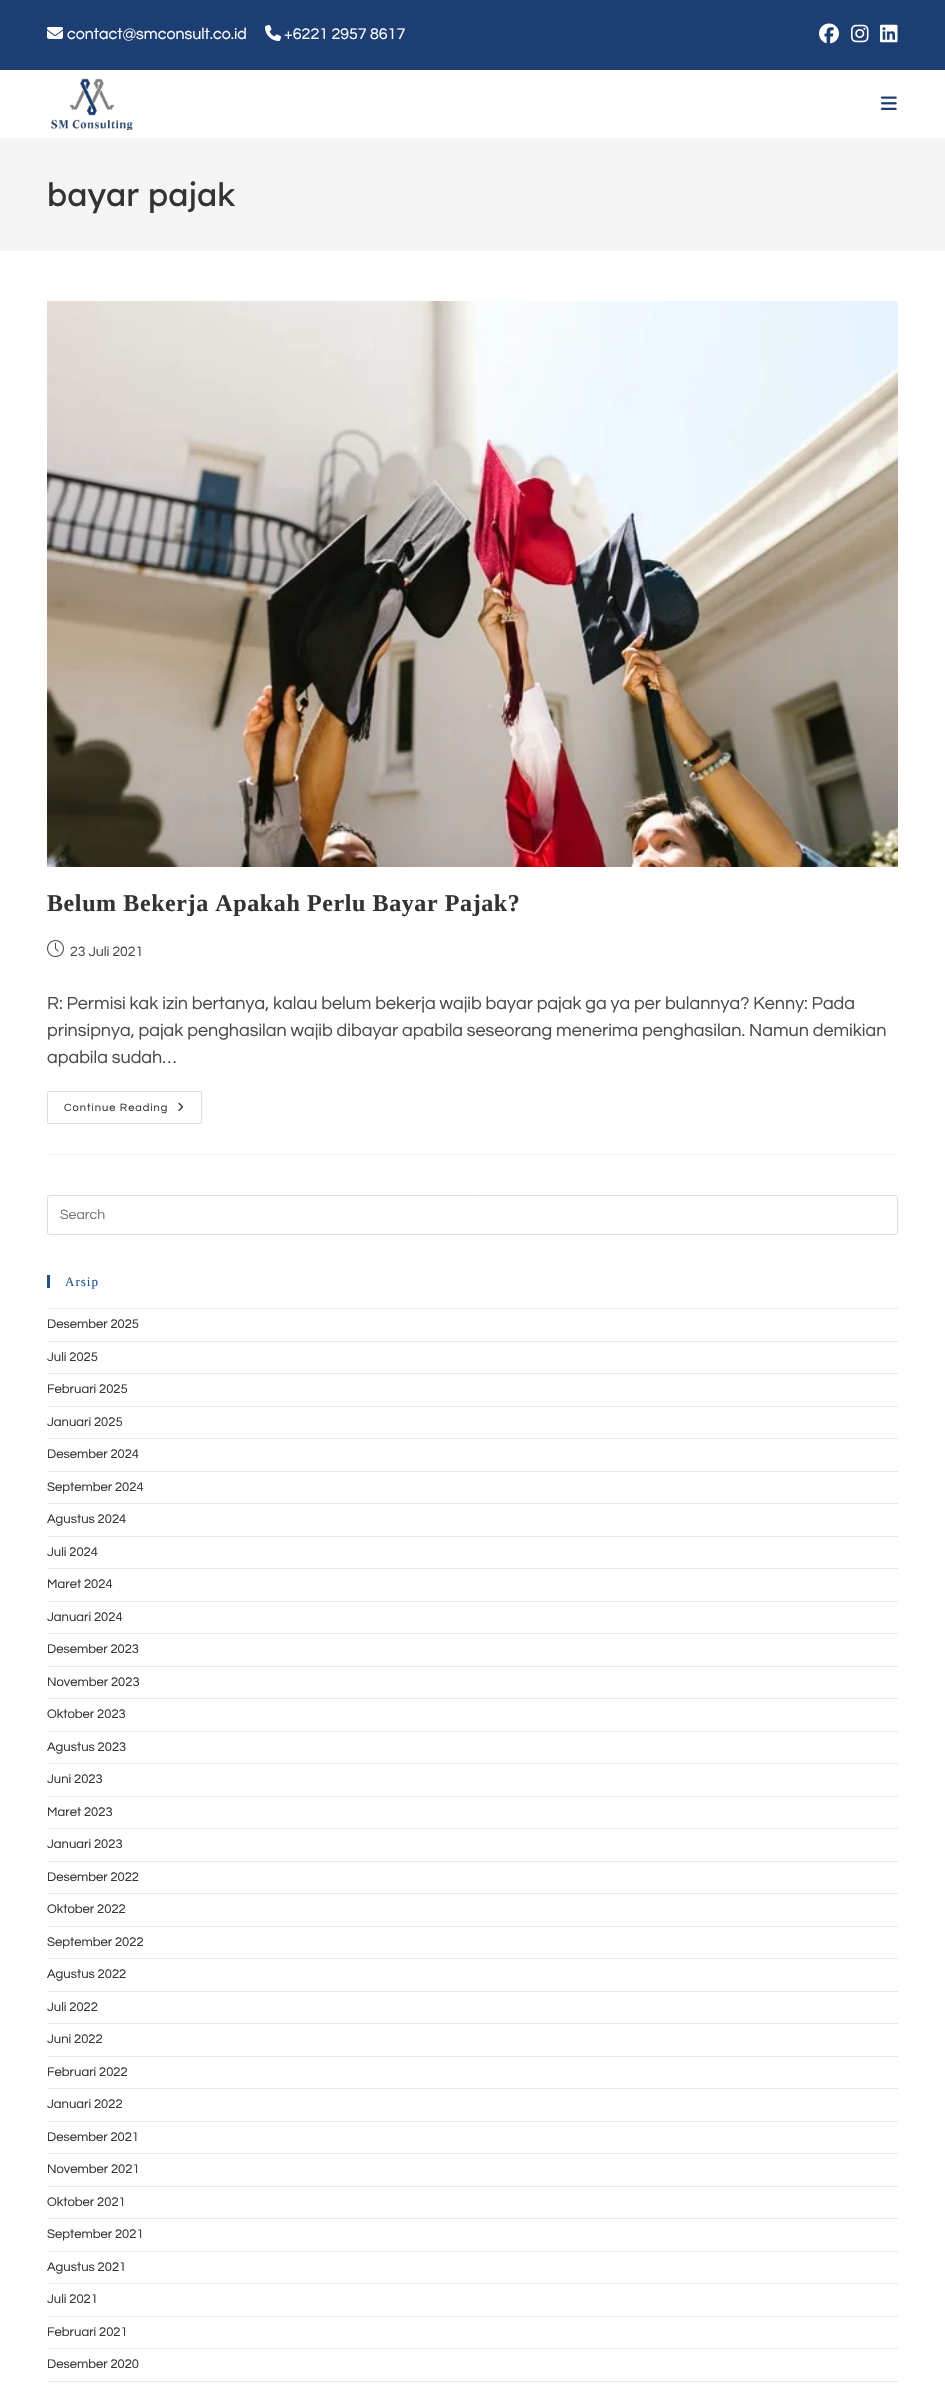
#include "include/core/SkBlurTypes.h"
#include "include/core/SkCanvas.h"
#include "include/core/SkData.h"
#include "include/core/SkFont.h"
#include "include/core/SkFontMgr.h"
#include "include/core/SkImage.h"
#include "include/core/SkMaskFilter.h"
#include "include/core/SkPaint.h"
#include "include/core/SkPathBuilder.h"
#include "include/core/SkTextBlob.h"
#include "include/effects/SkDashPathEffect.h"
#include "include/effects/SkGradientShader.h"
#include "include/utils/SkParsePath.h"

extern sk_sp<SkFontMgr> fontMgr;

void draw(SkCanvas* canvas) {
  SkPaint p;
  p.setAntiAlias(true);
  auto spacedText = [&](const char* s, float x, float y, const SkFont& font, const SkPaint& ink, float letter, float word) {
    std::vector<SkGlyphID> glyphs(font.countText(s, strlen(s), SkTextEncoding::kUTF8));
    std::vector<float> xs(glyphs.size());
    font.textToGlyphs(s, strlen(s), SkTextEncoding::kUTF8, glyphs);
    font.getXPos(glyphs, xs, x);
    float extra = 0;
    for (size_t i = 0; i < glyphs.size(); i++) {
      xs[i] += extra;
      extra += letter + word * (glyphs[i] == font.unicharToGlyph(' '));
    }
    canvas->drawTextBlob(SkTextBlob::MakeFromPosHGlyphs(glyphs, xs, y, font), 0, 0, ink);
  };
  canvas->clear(SK_ColorWHITE);
  p.setColor(SkColorSetRGB(29, 62, 115));
  canvas->drawRect(SkRect::MakeLTRB(0, 0, 945, 70), p);
  canvas->drawImageRect(SkImages::DeferredFromEncodedData(SkData::MakeFromFileName("images/1.png")), SkRect::MakeLTRB(47, 27, 63, 39), SkSamplingOptions());
  canvas->drawImageRect(SkImages::DeferredFromEncodedData(SkData::MakeFromFileName("images/2.png")), SkRect::MakeLTRB(265, 25, 281, 41), SkSamplingOptions());
  canvas->drawImageRect(SkImages::DeferredFromEncodedData(SkData::MakeFromFileName("images/3.png")), SkRect::MakeLTRB(819, 23, 839, 44), SkSamplingOptions());
  canvas->drawImageRect(SkImages::DeferredFromEncodedData(SkData::MakeFromFileName("images/4.png")), SkRect::MakeLTRB(851, 24, 869, 43), SkSamplingOptions());
  canvas->drawImageRect(SkImages::DeferredFromEncodedData(SkData::MakeFromFileName("images/5.png")), SkRect::MakeLTRB(880, 24, 898, 43), SkSamplingOptions());
  canvas->drawImageRect(SkImages::DeferredFromEncodedData(SkData::MakeFromFileName("images/6.png")), SkRect::MakeLTRB(51, 78, 133, 130), SkSamplingOptions());
  canvas->drawImageRect(SkImages::DeferredFromEncodedData(SkData::MakeFromFileName("images/7.png")), SkRect::MakeLTRB(881, 96, 897, 110), SkSamplingOptions());
  p.setColor(SkColorSetRGB(245, 245, 245));
  canvas->drawRect(SkRect::MakeLTRB(0, 138, 945, 251), p);
  p.setColor(SkColorSetRGB(241, 241, 241));
  canvas->drawRect(SkRect::MakeLTRB(47, 1154, 898, 1155), p);
  canvas->drawImageRect(SkImages::DeferredFromEncodedData(SkData::MakeFromFileName("images/8.png")), SkRect::MakeLTRB(47, 301, 898, 867), SkSamplingOptions());
  canvas->drawImageRect(SkImages::DeferredFromEncodedData(SkData::MakeFromFileName("images/9.png")), SkRect::MakeLTRB(47, 940, 64, 958), SkSamplingOptions());
  p.setStyle(SkPaint::kStroke_Style);
  p.setStrokeWidth(1);
  p.setColor(SkColorSetRGB(221, 221, 221));
  canvas->drawRoundRect(SkRect::MakeLTRB(47.5f, 1091.5f, 201.5f, 1123.5f), 1.5f, 1.5f, p);
  canvas->drawImageRect(SkImages::DeferredFromEncodedData(SkData::MakeFromFileName("images/10.png")), SkRect::MakeLTRB(178, 1102, 184, 1111), SkSamplingOptions());
  canvas->drawRoundRect(SkRect::MakeLTRB(47.5f, 1195.5f, 897.5f, 1234.5f), 2.5f, 2.5f, p);
  p.setStyle(SkPaint::kFill_Style);
  p.setColor(SkColorSetRGB(35, 83, 140));
  canvas->drawRect(SkRect::MakeLTRB(47, 1275, 50, 1288), p);
  p.setColor(SkColorSetRGB(233, 233, 233));
  canvas->drawRect(SkRect::MakeLTRB(47, 1308, 898, 1309), p);
  canvas->drawRect(SkRect::MakeLTRB(47, 1341, 898, 1342), p);
  canvas->drawRect(SkRect::MakeLTRB(47, 1373, 898, 1374), p);
  canvas->drawRect(SkRect::MakeLTRB(47, 1406, 898, 1407), p);
  canvas->drawRect(SkRect::MakeLTRB(47, 1438, 898, 1439), p);
  canvas->drawRect(SkRect::MakeLTRB(47, 1471, 898, 1472), p);
  canvas->drawRect(SkRect::MakeLTRB(47, 1503, 898, 1504), p);
  canvas->drawRect(SkRect::MakeLTRB(47, 1536, 898, 1537), p);
  canvas->drawRect(SkRect::MakeLTRB(47, 1568, 898, 1569), p);
  canvas->drawRect(SkRect::MakeLTRB(47, 1601, 898, 1602), p);
  canvas->drawRect(SkRect::MakeLTRB(47, 1633, 898, 1634), p);
  canvas->drawRect(SkRect::MakeLTRB(47, 1666, 898, 1667), p);
  canvas->drawRect(SkRect::MakeLTRB(47, 1698, 898, 1699), p);
  canvas->drawRect(SkRect::MakeLTRB(47, 1731, 898, 1732), p);
  canvas->drawRect(SkRect::MakeLTRB(47, 1763, 898, 1764), p);
  canvas->drawRect(SkRect::MakeLTRB(47, 1796, 898, 1797), p);
  canvas->drawRect(SkRect::MakeLTRB(47, 1828, 898, 1829), p);
  canvas->drawRect(SkRect::MakeLTRB(47, 1861, 898, 1862), p);
  canvas->drawRect(SkRect::MakeLTRB(47, 1893, 898, 1894), p);
  canvas->drawRect(SkRect::MakeLTRB(47, 1926, 898, 1927), p);
  canvas->drawRect(SkRect::MakeLTRB(47, 1958, 898, 1959), p);
  canvas->drawRect(SkRect::MakeLTRB(47, 1991, 898, 1992), p);
  canvas->drawRect(SkRect::MakeLTRB(47, 2023, 898, 2024), p);
  canvas->drawRect(SkRect::MakeLTRB(47, 2056, 898, 2057), p);
  canvas->drawRect(SkRect::MakeLTRB(47, 2088, 898, 2089), p);
  canvas->drawRect(SkRect::MakeLTRB(47, 2121, 898, 2122), p);
  canvas->drawRect(SkRect::MakeLTRB(47, 2153, 898, 2154), p);
  canvas->drawRect(SkRect::MakeLTRB(47, 2186, 898, 2187), p);
  canvas->drawRect(SkRect::MakeLTRB(47, 2218, 898, 2219), p);
  canvas->drawRect(SkRect::MakeLTRB(47, 2251, 898, 2252), p);
  canvas->drawRect(SkRect::MakeLTRB(47, 2283, 898, 2284), p);
  canvas->drawRect(SkRect::MakeLTRB(47, 2316, 898, 2317), p);
  canvas->drawRect(SkRect::MakeLTRB(47, 2348, 898, 2349), p);
  canvas->drawRect(SkRect::MakeLTRB(47, 2381, 898, 2382), p);
  SkFont font1(fontMgr->matchFamilyStyle("Questrial", SkFontStyle::Normal()), 16);
  font1.setSubpixel(true);
  p.setColor(SK_ColorWHITE);
  canvas->drawString("contact@smconsult.co.id", 67, 39, font1, p);
  canvas->drawString("+6221 2957 8617", 284, 39, font1, p);
  SkFont font2(fontMgr->matchFamilyStyle("Lexend", SkFontStyle::Normal()), 32);
  font2.setSubpixel(true);
  p.setColor(SkColorSetRGB(51, 51, 51));
  canvas->drawString("bayar pajak", 47, 206, font2, p);
  SkFont font3(fontMgr->matchFamilyStyle("Liberation Serif", SkFontStyle::Bold()), 24);
  font3.setSubpixel(true);
  spacedText("Belum Bekerja Apakah Perlu Bayar Pajak?", 47, 911, font3, p, 0.6f, 0);
  SkFont font4(fontMgr->matchFamilyStyle("Questrial", SkFontStyle::Normal()), 14);
  font4.setSubpixel(true);
  p.setColor(SkColorSetRGB(74, 74, 74));
  canvas->drawString("23 Juli 2021", 70, 956, font4, p);
  SkFont font5(fontMgr->matchFamilyStyle("Questrial", SkFontStyle::Normal()), 18);
  font5.setSubpixel(true);
  canvas->drawString("R: Permisi kak izin bertanya, kalau belum bekerja wajib bayar pajak ga ya per bulannya? Kenny: Pada", 47, 1009, font5, p);
  canvas->drawString("prinsipnya, pajak penghasilan wajib dibayar apabila seseorang menerima penghasilan. Namun demikian", 47, 1036, font5, p);
  canvas->drawString("apabila sudah…", 47, 1063, font5, p);
  SkFont font6(fontMgr->matchFamilyStyle("Questrial", SkFontStyle::Normal()), 11);
  font6.setSubpixel(true);
  p.setColor(SkColorSetRGB(51, 51, 51));
  spacedText("Continue Reading", 64, 1111, font6, p, 1, 0);
  p.setColor(SkColorSetRGB(117, 117, 117));
  canvas->drawString("Search", 60, 1219, font4, p);
  SkFont font7(fontMgr->matchFamilyStyle("Liberation Serif", SkFontStyle::Normal()), 13);
  font7.setSubpixel(true);
  p.setColor(SkColorSetRGB(35, 83, 140));
  spacedText("Arsip", 65, 1286, font7, p, 1, 0);
  SkFont font8(fontMgr->matchFamilyStyle("Questrial", SkFontStyle::Normal()), 13);
  font8.setSubpixel(true);
  p.setColor(SkColorSetRGB(51, 51, 51));
  canvas->drawString("Desember 2025", 47, 1328, font8, p);
  canvas->drawString("Juli 2025", 47, 1361, font8, p);
  canvas->drawString("Februari 2025", 47, 1393, font8, p);
  canvas->drawString("Januari 2025", 47, 1426, font8, p);
  canvas->drawString("Desember 2024", 47, 1458, font8, p);
  canvas->drawString("September 2024", 47, 1491, font8, p);
  canvas->drawString("Agustus 2024", 47, 1523, font8, p);
  canvas->drawString("Juli 2024", 47, 1556, font8, p);
  canvas->drawString("Maret 2024", 47, 1588, font8, p);
  canvas->drawString("Januari 2024", 47, 1621, font8, p);
  canvas->drawString("Desember 2023", 47, 1653, font8, p);
  canvas->drawString("November 2023", 47, 1686, font8, p);
  canvas->drawString("Oktober 2023", 47, 1718, font8, p);
  canvas->drawString("Agustus 2023", 47, 1751, font8, p);
  canvas->drawString("Juni 2023", 47, 1783, font8, p);
  canvas->drawString("Maret 2023", 47, 1816, font8, p);
  canvas->drawString("Januari 2023", 47, 1848, font8, p);
  canvas->drawString("Desember 2022", 47, 1881, font8, p);
  canvas->drawString("Oktober 2022", 47, 1913, font8, p);
  canvas->drawString("September 2022", 47, 1946, font8, p);
  canvas->drawString("Agustus 2022", 47, 1978, font8, p);
  canvas->drawString("Juli 2022", 47, 2011, font8, p);
  canvas->drawString("Juni 2022", 47, 2043, font8, p);
  canvas->drawString("Februari 2022", 47, 2076, font8, p);
  canvas->drawString("Januari 2022", 47, 2108, font8, p);
  canvas->drawString("Desember 2021", 47, 2141, font8, p);
  canvas->drawString("November 2021", 47, 2173, font8, p);
  canvas->drawString("Oktober 2021", 47, 2206, font8, p);
  canvas->drawString("September 2021", 47, 2238, font8, p);
  canvas->drawString("Agustus 2021", 47, 2271, font8, p);
  canvas->drawString("Juli 2021", 47, 2303, font8, p);
  canvas->drawString("Februari 2021", 47, 2336, font8, p);
  canvas->drawString("Desember 2020", 47, 2368, font8, p);
}
